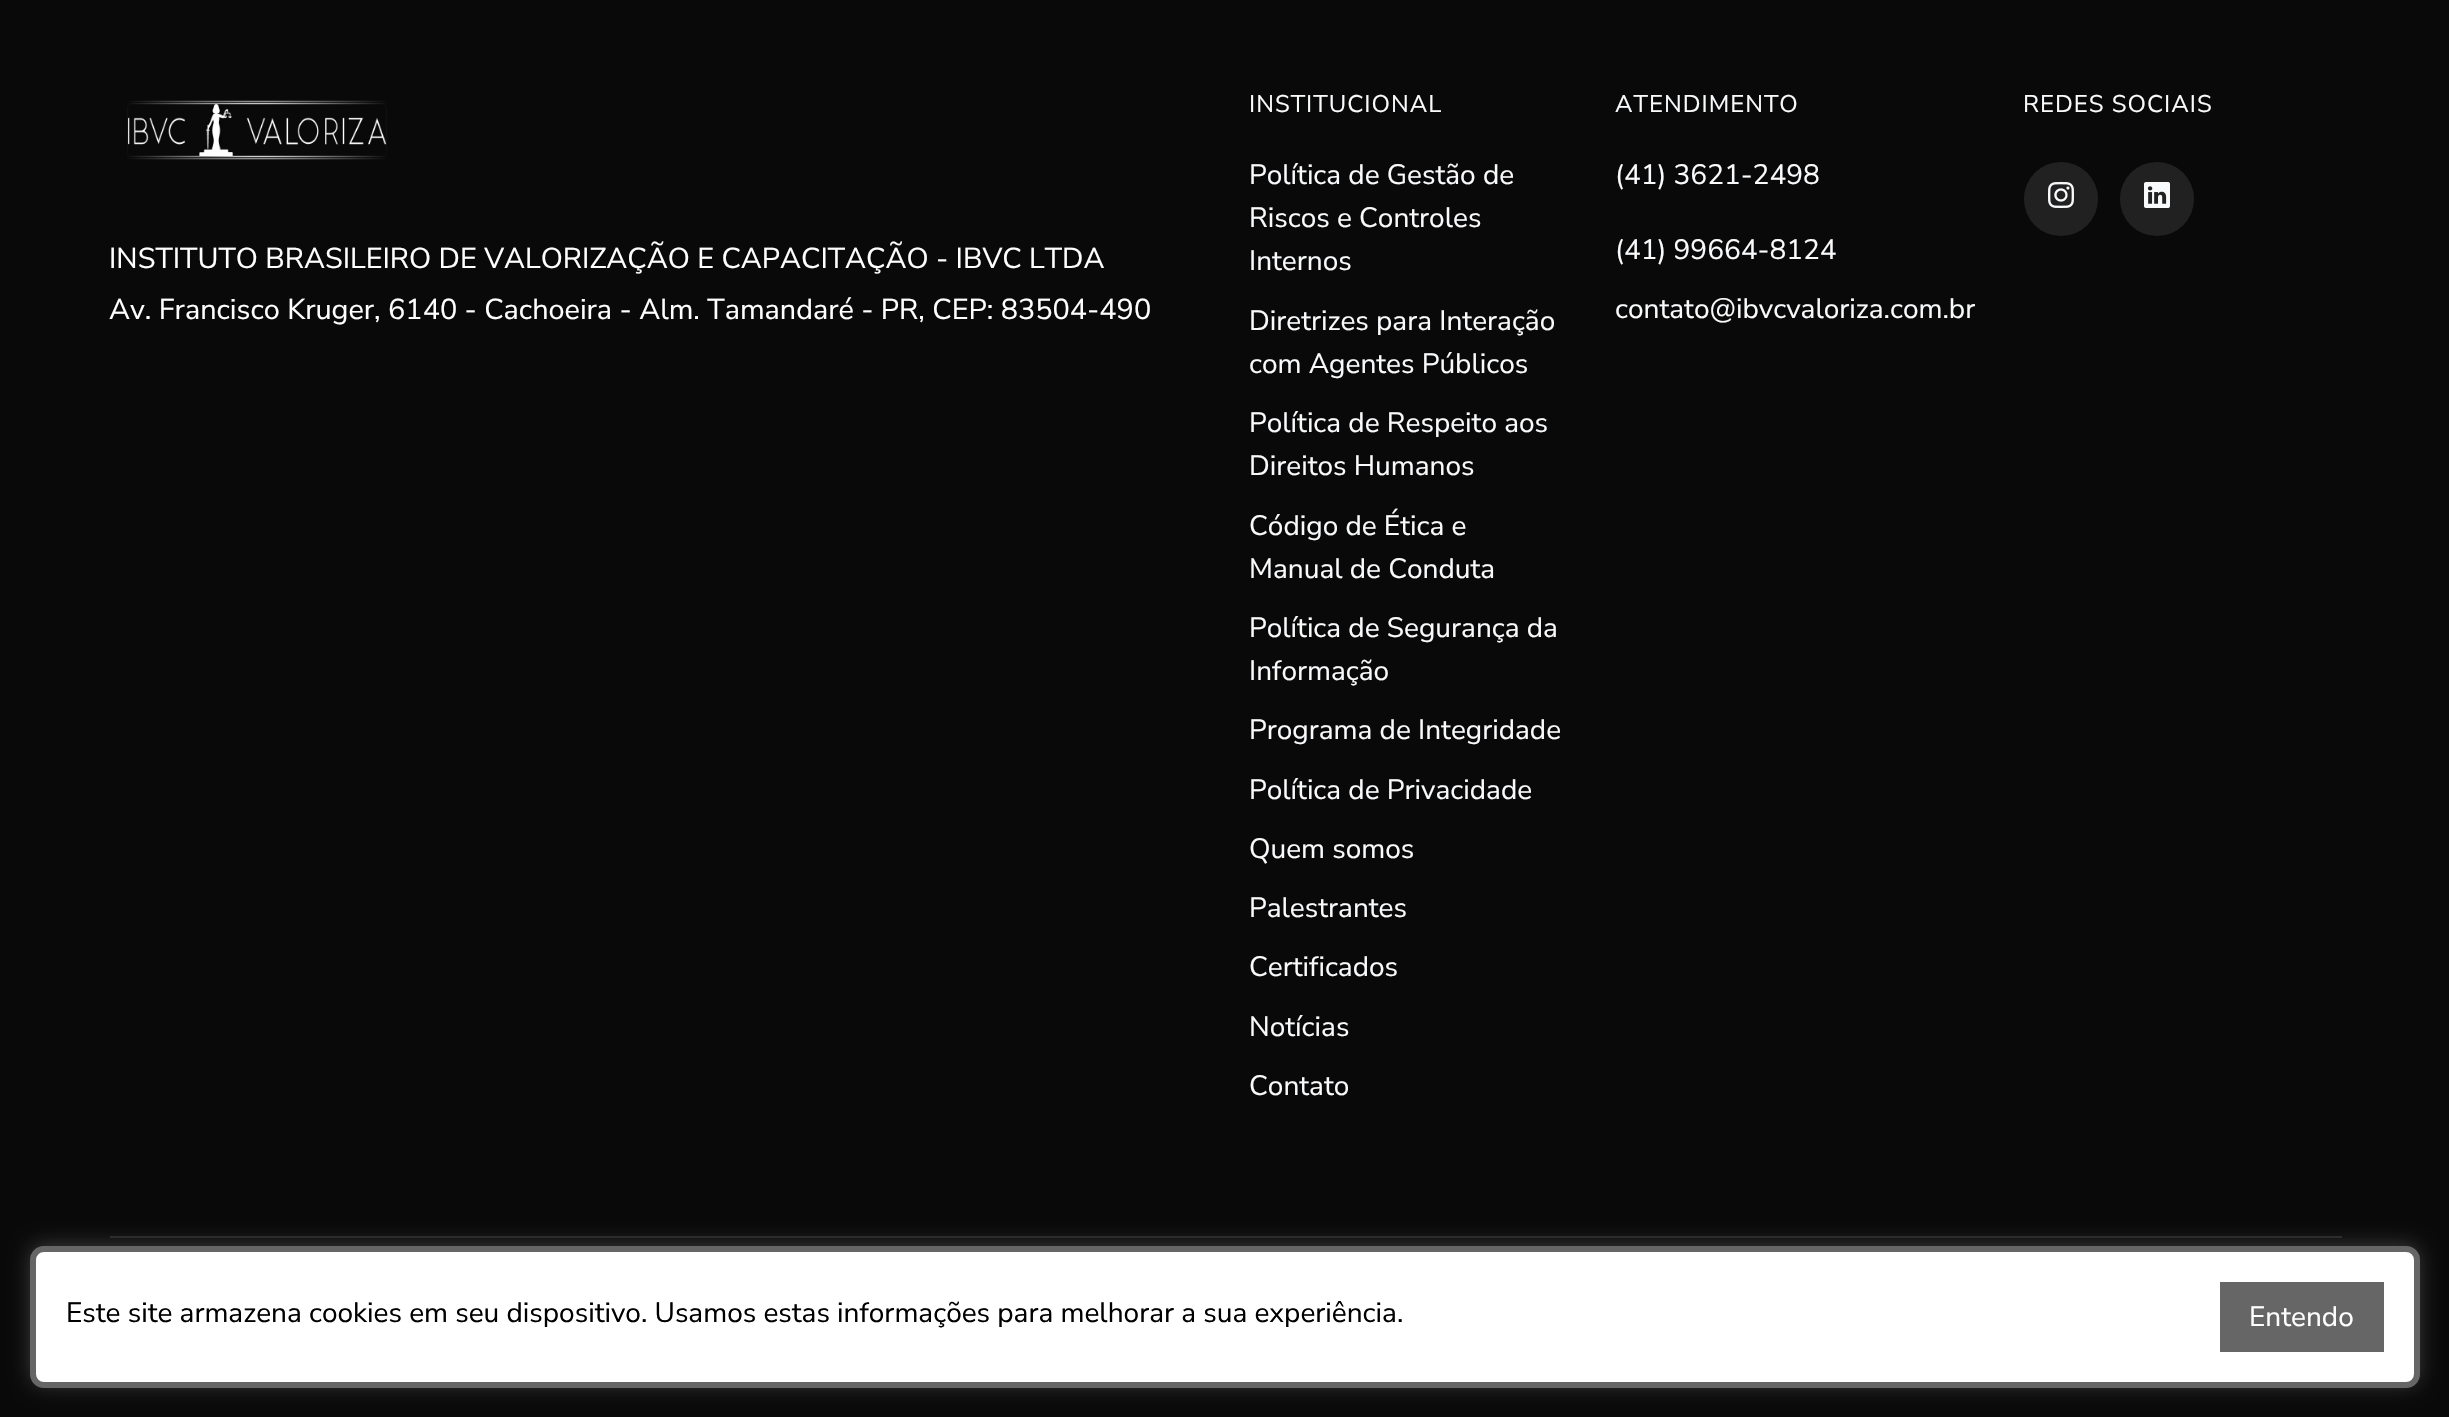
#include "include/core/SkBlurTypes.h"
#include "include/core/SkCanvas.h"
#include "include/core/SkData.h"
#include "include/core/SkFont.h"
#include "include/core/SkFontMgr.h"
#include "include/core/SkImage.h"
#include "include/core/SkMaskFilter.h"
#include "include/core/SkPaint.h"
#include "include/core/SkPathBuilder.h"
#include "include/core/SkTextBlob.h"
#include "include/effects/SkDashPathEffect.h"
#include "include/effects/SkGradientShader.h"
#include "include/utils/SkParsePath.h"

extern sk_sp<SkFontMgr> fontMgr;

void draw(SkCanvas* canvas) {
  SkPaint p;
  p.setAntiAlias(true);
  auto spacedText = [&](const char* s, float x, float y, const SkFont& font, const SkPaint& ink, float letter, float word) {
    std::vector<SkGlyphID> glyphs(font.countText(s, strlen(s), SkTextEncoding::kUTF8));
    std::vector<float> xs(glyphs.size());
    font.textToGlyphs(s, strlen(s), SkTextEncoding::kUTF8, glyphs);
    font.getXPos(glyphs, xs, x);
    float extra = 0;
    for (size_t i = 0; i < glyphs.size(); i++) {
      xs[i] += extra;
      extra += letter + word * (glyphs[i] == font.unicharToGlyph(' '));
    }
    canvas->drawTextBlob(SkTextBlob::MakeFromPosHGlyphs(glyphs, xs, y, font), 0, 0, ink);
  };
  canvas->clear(SkColorSetRGB(9, 9, 9));
  p.setColor(SkColorSetRGB(33, 33, 33));
  canvas->drawCircle(2061, 199, 37, p);
  canvas->drawImageRect(SkImages::DeferredFromEncodedData(SkData::MakeFromFileName("images/1.png")), SkRect::MakeLTRB(2048, 182, 2074, 208), SkSamplingOptions());
  canvas->drawCircle(2157, 199, 37, p);
  canvas->drawImageRect(SkImages::DeferredFromEncodedData(SkData::MakeFromFileName("images/2.png")), SkRect::MakeLTRB(2144, 182, 2170, 208), SkSamplingOptions());
  canvas->drawImageRect(SkImages::DeferredFromEncodedData(SkData::MakeFromFileName("images/3.png")), SkRect::MakeLTRB(127, 100, 387, 160), SkSamplingOptions());
  p.setColor(SkColorSetRGB(34, 34, 34));
  canvas->drawRect(SkRect::MakeLTRB(110, 1236, 2342, 1238), p);
  p.setColor(SkColorSetARGB(77, 170, 170, 170));
  p.setMaskFilter(SkMaskFilter::MakeBlur(kNormal_SkBlurStyle, 10));
  canvas->drawRoundRect(SkRect::MakeLTRB(30, 1244, 2420, 1386), 14, 14, p);
  p.setMaskFilter(nullptr);
  p.setColor(SK_ColorWHITE);
  canvas->drawRoundRect(SkRect::MakeLTRB(33, 1249, 2417, 1385), 11, 11, p);
  p.setStyle(SkPaint::kStroke_Style);
  p.setStrokeWidth(6);
  p.setColor(SkColorSetRGB(102, 102, 102));
  canvas->drawRoundRect(SkRect::MakeLTRB(33, 1249, 2417, 1385), 11, 11, p);
  p.setStyle(SkPaint::kFill_Style);
  canvas->drawRect(SkRect::MakeLTRB(2220, 1282, 2384, 1352), p);
  SkFont font1(fontMgr->matchFamilyStyle("Nunito Sans", SkFontStyle::Normal()), 24);
  font1.setSubpixel(true);
  p.setColor(SkColorSetRGB(249, 250, 252));
  spacedText("INSTITUCIONAL", 1249, 112, font1, p, 1, 0);
  SkFont font2(fontMgr->matchFamilyStyle("Nunito Sans", SkFontStyle::Normal()), 28);
  font2.setSubpixel(true);
  canvas->drawString("Política de Gestão de", 1249, 184, font2, p);
  canvas->drawString("Riscos e Controles", 1249, 227, font2, p);
  canvas->drawString("Internos", 1249, 270, font2, p);
  canvas->drawString("Diretrizes para Interação", 1249, 330, font2, p);
  canvas->drawString("com Agentes Públicos", 1249, 373, font2, p);
  canvas->drawString("Política de Respeito aos", 1249, 432, font2, p);
  canvas->drawString("Direitos Humanos", 1249, 475, font2, p);
  canvas->drawString("Código de Ética e", 1249, 535, font2, p);
  canvas->drawString("Manual de Conduta", 1249, 578, font2, p);
  canvas->drawString("Política de Segurança da", 1249, 637, font2, p);
  canvas->drawString("Informação", 1249, 680, font2, p);
  canvas->drawString("Programa de Integridade", 1249, 739, font2, p);
  canvas->drawString("Política de Privacidade", 1249, 799, font2, p);
  canvas->drawString("Quem somos", 1249, 858, font2, p);
  canvas->drawString("Palestrantes", 1249, 917, font2, p);
  canvas->drawString("Certificados", 1249, 976, font2, p);
  canvas->drawString("Notícias", 1249, 1036, font2, p);
  canvas->drawString("Contato", 1249, 1095, font2, p);
  spacedText("ATENDIMENTO", 1615, 112, font1, p, 1, 0);
  canvas->drawString("(41) 3621-2498", 1615, 184, font2, p);
  canvas->drawString("(41) 99664-8124", 1615, 259, font2, p);
  canvas->drawString("contato@ibvcvaloriza.com.br", 1615, 318, font2, p);
  spacedText("REDES SOCIAIS", 2023, 112, font1, p, 1, 0);
  SkFont font3(fontMgr->matchFamilyStyle("Nunito Sans", SkFontStyle::Normal()), 28.8f);
  font3.setSubpixel(true);
  p.setColor(SK_ColorWHITE);
  canvas->drawString("INSTITUTO BRASILEIRO DE VALORIZAÇÃO E CAPACITAÇÃO - IBVC LTDA", 109, 268, font3, p);
  canvas->drawString("Av. Francisco Kruger, 6140 - Cachoeira - Alm. Tamandaré - PR, CEP: 83504-490", 109, 319, font3, p);
  p.setColor(SK_ColorBLACK);
  canvas->drawString("Este site armazena cookies em seu dispositivo. Usamos estas informações para melhorar a sua experiência.", 66, 1322, font2, p);
  p.setColor(SK_ColorWHITE);
  canvas->drawString("Entendo", 2249, 1326, font2, p);
}
